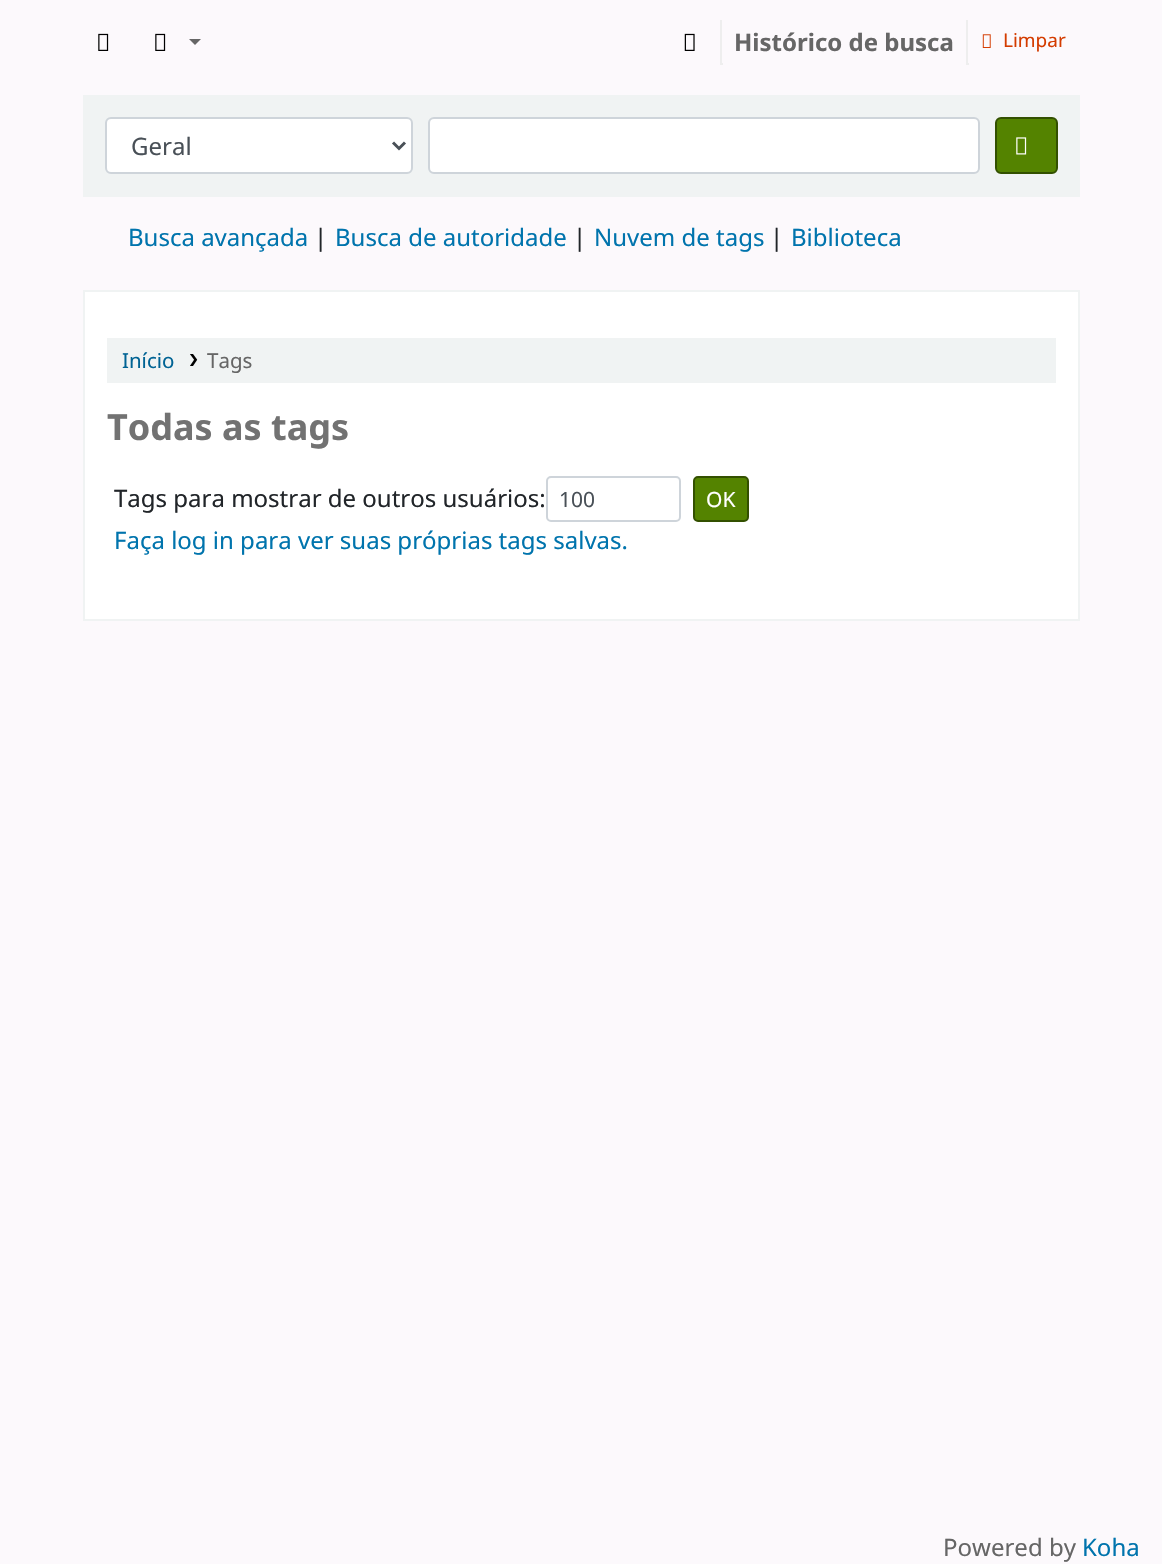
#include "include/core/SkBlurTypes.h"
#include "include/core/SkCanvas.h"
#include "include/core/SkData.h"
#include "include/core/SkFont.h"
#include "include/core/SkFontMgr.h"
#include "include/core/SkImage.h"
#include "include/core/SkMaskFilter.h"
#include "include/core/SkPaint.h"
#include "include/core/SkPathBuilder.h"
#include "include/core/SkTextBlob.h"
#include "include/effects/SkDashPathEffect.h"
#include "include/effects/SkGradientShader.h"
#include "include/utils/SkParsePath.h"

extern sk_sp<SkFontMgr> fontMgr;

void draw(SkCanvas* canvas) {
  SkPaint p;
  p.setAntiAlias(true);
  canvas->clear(SkColorSetRGB(252, 249, 252));
  canvas->drawImageRect(SkImages::DeferredFromEncodedData(SkData::MakeFromFileName("images/1.png")), SkRect::MakeLTRB(98, 33, 109, 51), SkSamplingOptions());
  canvas->drawImageRect(SkImages::DeferredFromEncodedData(SkData::MakeFromFileName("images/1.png")), SkRect::MakeLTRB(155, 33, 166, 51), SkSamplingOptions());
  p.setColor(SkColorSetRGB(102, 102, 102));
  canvas->drawPath(SkPathBuilder().moveTo(189, 39).lineTo(201, 39).lineTo(195, 45).close().detach(), p);
  canvas->drawImageRect(SkImages::DeferredFromEncodedData(SkData::MakeFromFileName("images/2.png")), SkRect::MakeLTRB(684, 33, 695, 51), SkSamplingOptions());
  p.setColor(SkColorSetRGB(238, 238, 238));
  canvas->drawRect(SkRect::MakeLTRB(720, 63, 723, 65), p);
  canvas->drawRect(SkRect::MakeLTRB(720, 20, 722, 65), p);
  canvas->drawRect(SkRect::MakeLTRB(966, 63, 969, 65), p);
  canvas->drawRect(SkRect::MakeLTRB(966, 20, 968, 65), p);
  canvas->drawImageRect(SkImages::DeferredFromEncodedData(SkData::MakeFromFileName("images/3.png")), SkRect::MakeLTRB(982, 34, 991, 48), SkSamplingOptions());
  p.setColor(SkColorSetRGB(240, 243, 243));
  canvas->drawRect(SkRect::MakeLTRB(83, 95, 1080, 197), p);
  p.setColor(SK_ColorWHITE);
  canvas->drawRoundRect(SkRect::MakeLTRB(106, 118, 412, 173), 5, 5, p);
  p.setStyle(SkPaint::kStroke_Style);
  p.setStrokeWidth(2);
  p.setColor(SkColorSetRGB(206, 212, 218));
  canvas->drawRoundRect(SkRect::MakeLTRB(106, 118, 412, 173), 5, 5, p);
  p.setStrokeWidth(3);
  p.setColor(SkColorSetRGB(73, 80, 87));
  canvas->drawPath(SkPathBuilder().moveTo(393, 142.5f).lineTo(399, 148.5f).lineTo(405, 142.5f).detach(), p);
  p.setStyle(SkPaint::kFill_Style);
  p.setColor(SK_ColorWHITE);
  canvas->drawRoundRect(SkRect::MakeLTRB(429, 118, 979, 173), 5, 5, p);
  p.setStyle(SkPaint::kStroke_Style);
  p.setStrokeWidth(2);
  p.setColor(SkColorSetRGB(206, 212, 218));
  canvas->drawRoundRect(SkRect::MakeLTRB(429, 118, 979, 173), 5, 5, p);
  p.setStyle(SkPaint::kFill_Style);
  p.setColor(SkColorSetRGB(84, 131, 0));
  canvas->drawRoundRect(SkRect::MakeLTRB(996, 118, 1057, 173), 5, 5, p);
  p.setStyle(SkPaint::kStroke_Style);
  p.setColor(SkColorSetRGB(51, 80, 0));
  canvas->drawRoundRect(SkRect::MakeLTRB(996, 118, 1057, 173), 5, 5, p);
  canvas->drawImageRect(SkImages::DeferredFromEncodedData(SkData::MakeFromFileName("images/4.png")), SkRect::MakeLTRB(1016, 137, 1027, 155), SkSamplingOptions());
  p.setStyle(SkPaint::kFill_Style);
  p.setColor(SK_ColorWHITE);
  canvas->drawRect(SkRect::MakeLTRB(84, 291, 1079, 620), p);
  p.setStyle(SkPaint::kStroke_Style);
  p.setColor(SkColorSetRGB(240, 243, 243));
  canvas->drawRect(SkRect::MakeLTRB(84, 291, 1079, 620), p);
  p.setStyle(SkPaint::kFill_Style);
  canvas->drawRect(SkRect::MakeLTRB(107, 338, 1056, 383), p);
  canvas->drawImageRect(SkImages::DeferredFromEncodedData(SkData::MakeFromFileName("images/5.png")), SkRect::MakeLTRB(190, 354, 198, 366), SkSamplingOptions());
  p.setStyle(SkPaint::kStroke_Style);
  p.setColor(SkColorSetRGB(206, 212, 218));
  canvas->drawRoundRect(SkRect::MakeLTRB(547, 477, 680, 521), 4, 4, p);
  p.setStyle(SkPaint::kFill_Style);
  p.setColor(SkColorSetRGB(84, 131, 0));
  canvas->drawRoundRect(SkRect::MakeLTRB(694, 477, 748, 521), 4, 4, p);
  p.setStyle(SkPaint::kStroke_Style);
  p.setColor(SkColorSetRGB(51, 80, 0));
  canvas->drawRoundRect(SkRect::MakeLTRB(694, 477, 748, 521), 4, 4, p);
  SkFont font1(fontMgr->matchFamilyStyle("Noto Sans", SkFontStyle::Bold()), 24);
  font1.setSubpixel(true);
  p.setStyle(SkPaint::kFill_Style);
  p.setColor(SkColorSetRGB(102, 102, 102));
  canvas->drawString("Histórico de busca", 734, 51, font1, p);
  SkFont font2(fontMgr->matchFamilyStyle("Noto Sans", SkFontStyle::Normal()), 19);
  font2.setSubpixel(true);
  p.setColor(SkColorSetRGB(212, 60, 0));
  canvas->drawString("Limpar", 1003, 47, font2, p);
  SkFont font3(fontMgr->matchFamilyStyle("Noto Sans", SkFontStyle::Normal()), 24);
  font3.setSubpixel(true);
  p.setColor(SkColorSetRGB(73, 80, 87));
  canvas->drawString("Geral", 131, 155, font3, p);
  p.setColor(SkColorSetRGB(0, 116, 173));
  canvas->drawString("Busca avançada", 128, 246, font3, p);
  p.setColor(SkColorSetRGB(33, 37, 41));
  canvas->drawString("|", 314, 246, font3, p);
  p.setColor(SkColorSetRGB(0, 116, 173));
  canvas->drawString("Busca de autoridade", 335, 246, font3, p);
  p.setColor(SkColorSetRGB(33, 37, 41));
  canvas->drawString("|", 573, 246, font3, p);
  p.setColor(SkColorSetRGB(0, 116, 173));
  canvas->drawString("Nuvem de tags", 594, 246, font3, p);
  p.setColor(SkColorSetRGB(33, 37, 41));
  canvas->drawString("|", 770, 246, font3, p);
  p.setColor(SkColorSetRGB(0, 116, 173));
  canvas->drawString("Biblioteca", 791, 246, font3, p);
  SkFont font4(fontMgr->matchFamilyStyle("Noto Sans", SkFontStyle::Normal()), 20.5f);
  font4.setSubpixel(true);
  p.setColor(SkColorSetRGB(0, 99, 148));
  canvas->drawString("Início", 122, 368, font4, p);
  p.setColor(SkColorSetRGB(102, 102, 102));
  canvas->drawString("Tags", 207, 368, font4, p);
  SkFont font5(fontMgr->matchFamilyStyle("Noto Sans", SkFontStyle::Bold()), 36);
  font5.setSubpixel(true);
  p.setColor(SkColorSetRGB(114, 114, 114));
  canvas->drawString("Todas as tags", 107, 440, font5, p);
  p.setColor(SkColorSetRGB(33, 37, 41));
  canvas->drawString("Tags para mostrar de outros usuários:", 114, 507, font3, p);
  SkFont font6(fontMgr->matchFamilyStyle("Noto Sans", SkFontStyle::Normal()), 21);
  font6.setSubpixel(true);
  p.setColor(SkColorSetRGB(73, 80, 87));
  canvas->drawString("100", 559, 507, font6, p);
  p.setColor(SK_ColorWHITE);
  canvas->drawString("OK", 706, 507, font6, p);
  p.setColor(SkColorSetRGB(0, 116, 173));
  canvas->drawString("Faça log in para ver suas próprias tags salvas.", 114, 549, font3, p);
  p.setColor(SkColorSetRGB(102, 102, 102));
  canvas->drawString("Powered by", 943, 1556, font3, p);
  p.setColor(SkColorSetRGB(0, 116, 173));
  canvas->drawString("Koha", 1082, 1556, font3, p);
}
